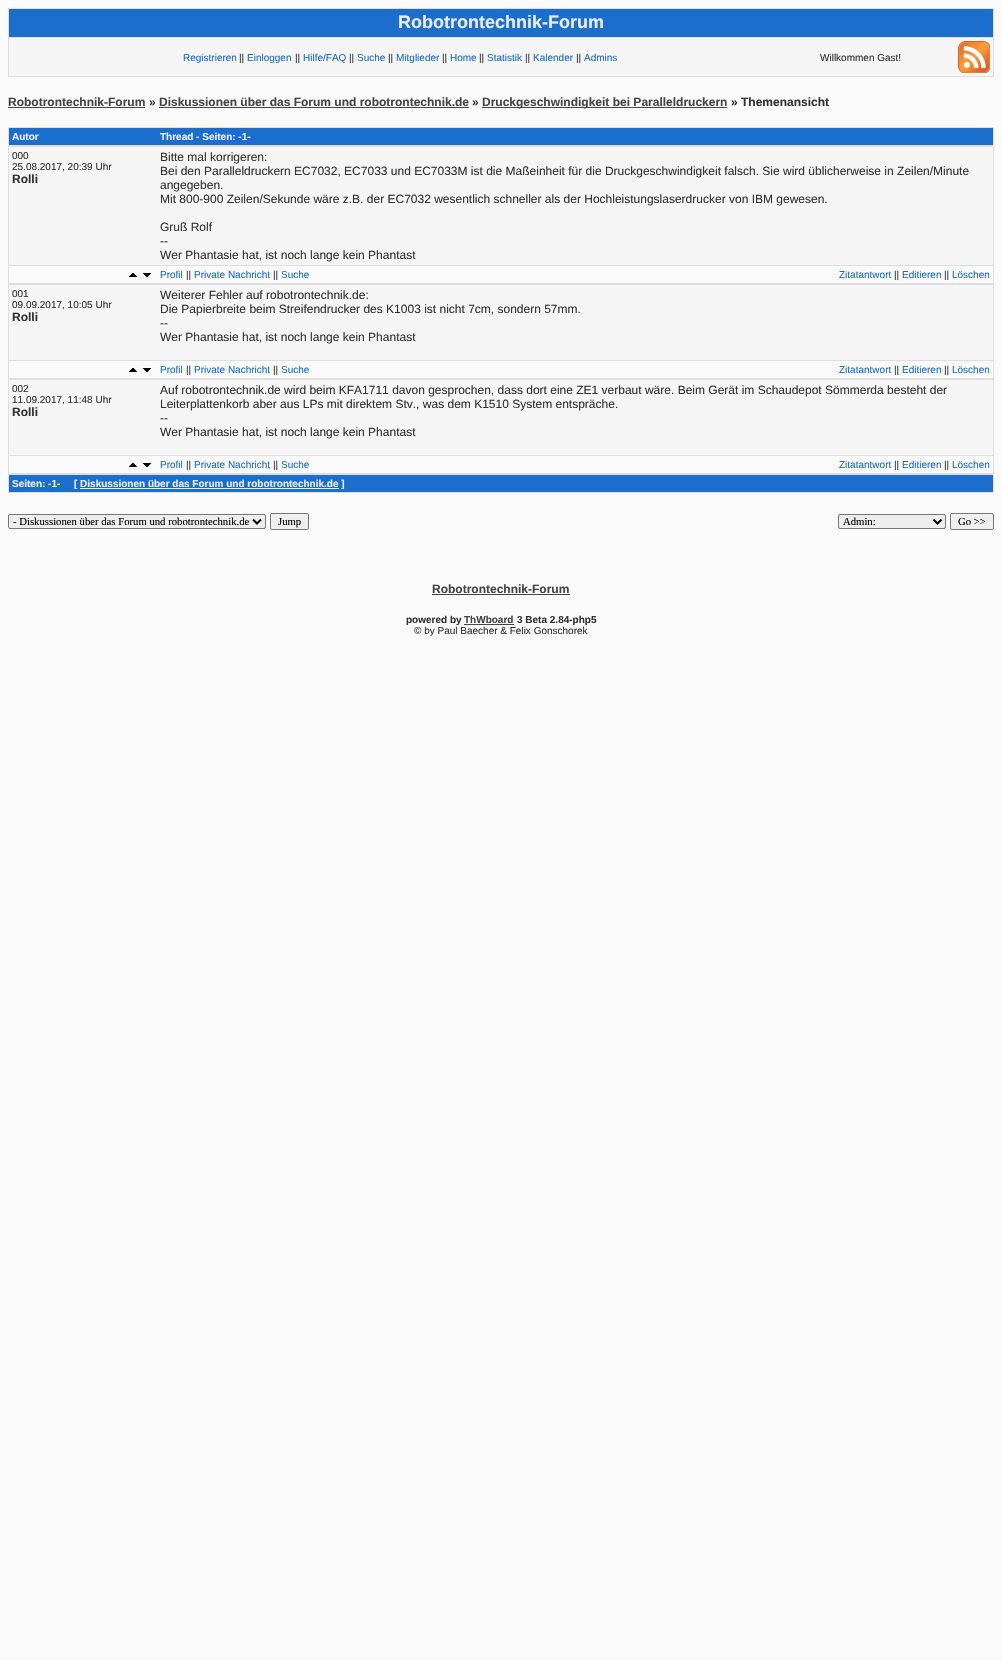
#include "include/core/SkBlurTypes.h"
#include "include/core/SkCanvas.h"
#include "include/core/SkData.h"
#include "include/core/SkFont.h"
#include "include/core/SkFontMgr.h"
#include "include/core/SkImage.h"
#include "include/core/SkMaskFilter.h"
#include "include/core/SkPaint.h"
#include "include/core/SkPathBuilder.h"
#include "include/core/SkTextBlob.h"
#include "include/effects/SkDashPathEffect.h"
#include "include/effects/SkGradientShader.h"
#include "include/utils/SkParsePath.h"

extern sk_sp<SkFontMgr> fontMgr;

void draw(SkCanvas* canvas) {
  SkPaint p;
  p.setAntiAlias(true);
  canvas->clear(SkColorSetRGB(250, 250, 250));
  p.setColor(SkColorSetRGB(222, 222, 222));
  canvas->drawRect(SkRect::MakeLTRB(8, 8, 994, 77), p);
  p.setColor(SkColorSetRGB(27, 110, 204));
  canvas->drawRect(SkRect::MakeLTRB(9, 9, 993, 37), p);
  p.setColor(SkColorSetRGB(245, 245, 245));
  canvas->drawRect(SkRect::MakeLTRB(9, 38, 993, 76), p);
  canvas->drawImageRect(SkImages::DeferredFromEncodedData(SkData::MakeFromFileName("images/1.png")), SkRect::MakeLTRB(958, 41, 990, 73), SkSamplingOptions());
  p.setColor(SkColorSetRGB(69, 69, 69));
  canvas->drawRect(SkRect::MakeLTRB(8, 107, 145, 108), p);
  canvas->drawRect(SkRect::MakeLTRB(159, 107, 469, 108), p);
  canvas->drawRect(SkRect::MakeLTRB(482, 107, 727, 108), p);
  p.setColor(SkColorSetRGB(222, 222, 222));
  canvas->drawRect(SkRect::MakeLTRB(8, 127, 994, 493), p);
  p.setColor(SkColorSetRGB(27, 110, 204));
  canvas->drawRect(SkRect::MakeLTRB(9, 128, 993, 145), p);
  p.setColor(SkColorSetRGB(245, 245, 245));
  canvas->drawRect(SkRect::MakeLTRB(9, 147, 993, 265), p);
  p.setColor(SkColorSetRGB(250, 250, 250));
  canvas->drawRect(SkRect::MakeLTRB(9, 266, 993, 283), p);
  canvas->drawImageRect(SkImages::DeferredFromEncodedData(SkData::MakeFromFileName("images/2.png")), SkRect::MakeLTRB(128, 272, 138, 278), SkSamplingOptions());
  canvas->drawImageRect(SkImages::DeferredFromEncodedData(SkData::MakeFromFileName("images/3.png")), SkRect::MakeLTRB(142, 272, 152, 278), SkSamplingOptions());
  p.setColor(SkColorSetRGB(245, 245, 245));
  canvas->drawRect(SkRect::MakeLTRB(9, 285, 993, 360), p);
  p.setColor(SkColorSetRGB(250, 250, 250));
  canvas->drawRect(SkRect::MakeLTRB(9, 361, 993, 378), p);
  canvas->drawImageRect(SkImages::DeferredFromEncodedData(SkData::MakeFromFileName("images/2.png")), SkRect::MakeLTRB(128, 367, 138, 373), SkSamplingOptions());
  canvas->drawImageRect(SkImages::DeferredFromEncodedData(SkData::MakeFromFileName("images/3.png")), SkRect::MakeLTRB(142, 367, 152, 373), SkSamplingOptions());
  p.setColor(SkColorSetRGB(245, 245, 245));
  canvas->drawRect(SkRect::MakeLTRB(9, 380, 993, 455), p);
  p.setColor(SkColorSetRGB(250, 250, 250));
  canvas->drawRect(SkRect::MakeLTRB(9, 456, 993, 473), p);
  canvas->drawImageRect(SkImages::DeferredFromEncodedData(SkData::MakeFromFileName("images/2.png")), SkRect::MakeLTRB(128, 462, 138, 468), SkSamplingOptions());
  canvas->drawImageRect(SkImages::DeferredFromEncodedData(SkData::MakeFromFileName("images/3.png")), SkRect::MakeLTRB(142, 462, 152, 468), SkSamplingOptions());
  p.setColor(SkColorSetRGB(27, 110, 204));
  canvas->drawRect(SkRect::MakeLTRB(9, 475, 993, 492), p);
  p.setColor(SkColorSetRGB(236, 236, 236));
  canvas->drawRect(SkRect::MakeLTRB(80, 488, 339, 489), p);
  p.setColor(SkColorSetRGB(238, 238, 238));
  canvas->drawRoundRect(SkRect::MakeLTRB(8.5f, 514.5f, 265.5f, 528.5f), 1.5f, 1.5f, p);
  p.setStyle(SkPaint::kStroke_Style);
  p.setStrokeWidth(1);
  p.setColor(SkColorSetRGB(118, 118, 118));
  canvas->drawRoundRect(SkRect::MakeLTRB(8.5f, 514.5f, 265.5f, 528.5f), 1.5f, 1.5f, p);
  p.setStrokeWidth(2);
  p.setColor(SK_ColorBLACK);
  canvas->drawPath(SkPathBuilder().moveTo(253, 519.5f).lineTo(257, 523.5f).lineTo(261, 519.5f).detach(), p);
  p.setStyle(SkPaint::kFill_Style);
  p.setColor(SkColorSetRGB(239, 239, 239));
  canvas->drawRoundRect(SkRect::MakeLTRB(270.5f, 513.5f, 308.5f, 529.5f), 1.5f, 1.5f, p);
  p.setStyle(SkPaint::kStroke_Style);
  p.setStrokeWidth(1);
  p.setColor(SkColorSetRGB(118, 118, 118));
  canvas->drawRoundRect(SkRect::MakeLTRB(270.5f, 513.5f, 308.5f, 529.5f), 1.5f, 1.5f, p);
  p.setStyle(SkPaint::kFill_Style);
  p.setColor(SkColorSetRGB(238, 238, 238));
  canvas->drawRoundRect(SkRect::MakeLTRB(838.5f, 514.5f, 945.5f, 528.5f), 1.5f, 1.5f, p);
  p.setStyle(SkPaint::kStroke_Style);
  p.setColor(SkColorSetRGB(118, 118, 118));
  canvas->drawRoundRect(SkRect::MakeLTRB(838.5f, 514.5f, 945.5f, 528.5f), 1.5f, 1.5f, p);
  p.setStrokeWidth(2);
  p.setColor(SK_ColorBLACK);
  canvas->drawPath(SkPathBuilder().moveTo(933.5f, 519.5f).lineTo(937.5f, 523.5f).lineTo(941.5f, 519.5f).detach(), p);
  p.setStyle(SkPaint::kFill_Style);
  p.setColor(SkColorSetRGB(239, 239, 239));
  canvas->drawRoundRect(SkRect::MakeLTRB(950.5f, 513.5f, 993.5f, 529.5f), 1.5f, 1.5f, p);
  p.setStyle(SkPaint::kStroke_Style);
  p.setStrokeWidth(1);
  p.setColor(SkColorSetRGB(118, 118, 118));
  canvas->drawRoundRect(SkRect::MakeLTRB(950.5f, 513.5f, 993.5f, 529.5f), 1.5f, 1.5f, p);
  p.setStyle(SkPaint::kFill_Style);
  p.setColor(SkColorSetRGB(69, 69, 69));
  canvas->drawRect(SkRect::MakeLTRB(432, 594, 570, 595), p);
  canvas->drawRect(SkRect::MakeLTRB(464, 624, 514, 625), p);
  SkFont font1(fontMgr->matchFamilyStyle("Liberation Sans", SkFontStyle::Bold()), 18);
  font1.setSubpixel(true);
  p.setColor(SkColorSetRGB(236, 236, 236));
  canvas->drawString("Robotrontechnik-Forum", 398, 28, font1, p);
  SkFont font2(fontMgr->matchFamilyStyle("Liberation Sans", SkFontStyle::Normal()), 10);
  font2.setSubpixel(true);
  p.setColor(SkColorSetRGB(27, 110, 204));
  canvas->drawString("Registrieren", 183, 61, font2, p);
  p.setColor(SkColorSetRGB(50, 50, 50));
  canvas->drawString("||", 239, 61, font2, p);
  p.setColor(SkColorSetRGB(27, 110, 204));
  canvas->drawString("Einloggen", 247, 61, font2, p);
  p.setColor(SkColorSetRGB(50, 50, 50));
  canvas->drawString("||", 295, 61, font2, p);
  p.setColor(SkColorSetRGB(27, 110, 204));
  canvas->drawString("Hilfe/FAQ", 303, 61, font2, p);
  p.setColor(SkColorSetRGB(50, 50, 50));
  canvas->drawString("||", 349, 61, font2, p);
  p.setColor(SkColorSetRGB(27, 110, 204));
  canvas->drawString("Suche", 357, 61, font2, p);
  p.setColor(SkColorSetRGB(50, 50, 50));
  canvas->drawString("||", 388, 61, font2, p);
  p.setColor(SkColorSetRGB(27, 110, 204));
  canvas->drawString("Mitglieder", 396, 61, font2, p);
  p.setColor(SkColorSetRGB(50, 50, 50));
  canvas->drawString("||", 442, 61, font2, p);
  p.setColor(SkColorSetRGB(27, 110, 204));
  canvas->drawString("Home", 450, 61, font2, p);
  p.setColor(SkColorSetRGB(50, 50, 50));
  canvas->drawString("||", 479, 61, font2, p);
  p.setColor(SkColorSetRGB(27, 110, 204));
  canvas->drawString("Statistik", 487, 61, font2, p);
  p.setColor(SkColorSetRGB(50, 50, 50));
  canvas->drawString("||", 525, 61, font2, p);
  p.setColor(SkColorSetRGB(27, 110, 204));
  canvas->drawString("Kalender", 533, 61, font2, p);
  p.setColor(SkColorSetRGB(50, 50, 50));
  canvas->drawString("||", 576, 61, font2, p);
  p.setColor(SkColorSetRGB(27, 110, 204));
  canvas->drawString("Admins", 584, 61, font2, p);
  p.setColor(SkColorSetRGB(50, 50, 50));
  canvas->drawString("Willkommen Gast!", 820, 61, font2, p);
  SkFont font3(fontMgr->matchFamilyStyle("Liberation Sans", SkFontStyle::Bold()), 12);
  font3.setSubpixel(true);
  p.setColor(SkColorSetRGB(69, 69, 69));
  canvas->drawString("Robotrontechnik-Forum", 8, 106, font3, p);
  p.setColor(SkColorSetRGB(50, 50, 50));
  canvas->drawString("»", 149, 106, font3, p);
  p.setColor(SkColorSetRGB(69, 69, 69));
  canvas->drawString("Diskussionen über das Forum und robotrontechnik.de", 159, 106, font3, p);
  p.setColor(SkColorSetRGB(50, 50, 50));
  canvas->drawString("»", 472, 106, font3, p);
  p.setColor(SkColorSetRGB(69, 69, 69));
  canvas->drawString("Druckgeschwindigkeit bei Paralleldruckern", 482, 106, font3, p);
  p.setColor(SkColorSetRGB(50, 50, 50));
  canvas->drawString("» Themenansicht", 731, 106, font3, p);
  SkFont font4(fontMgr->matchFamilyStyle("Liberation Sans", SkFontStyle::Bold()), 10);
  font4.setSubpixel(true);
  p.setColor(SkColorSetRGB(236, 236, 236));
  canvas->drawString("Autor", 12, 140, font4, p);
  canvas->drawString("Thread - Seiten: -1-", 160, 140, font4, p);
  p.setColor(SkColorSetRGB(50, 50, 50));
  canvas->drawString("000", 12, 159, font2, p);
  canvas->drawString("25.08.2017, 20:39 Uhr", 12, 170, font2, p);
  canvas->drawString("Rolli", 12, 183, font3, p);
  SkFont font5(fontMgr->matchFamilyStyle("Liberation Sans", SkFontStyle::Normal()), 12);
  font5.setSubpixel(true);
  canvas->drawString("Bitte mal korrigeren:", 160, 161, font5, p);
  canvas->drawString("Bei den Paralleldruckern EC7032, EC7033 und EC7033M ist die Maßeinheit für die Druckgeschwindigkeit falsch. Sie wird üblicherweise in Zeilen/Minute", 160, 175, font5, p);
  canvas->drawString("angegeben.", 160, 189, font5, p);
  canvas->drawString("Mit 800-900 Zeilen/Sekunde wäre z.B. der EC7032 wesentlich schneller als der Hochleistungslaserdrucker von IBM gewesen.", 160, 203, font5, p);
  canvas->drawString("Gruß Rolf", 160, 231, font5, p);
  canvas->drawString("--", 160, 245, font5, p);
  canvas->drawString("Wer Phantasie hat, ist noch lange kein Phantast", 160, 259, font5, p);
  p.setColor(SkColorSetRGB(27, 110, 204));
  canvas->drawString("Profil", 160, 278, font2, p);
  p.setColor(SkColorSetRGB(50, 50, 50));
  canvas->drawString("||", 186, 278, font2, p);
  p.setColor(SkColorSetRGB(27, 110, 204));
  canvas->drawString("Private Nachricht", 194, 278, font2, p);
  p.setColor(SkColorSetRGB(50, 50, 50));
  canvas->drawString("||", 273, 278, font2, p);
  p.setColor(SkColorSetRGB(27, 110, 204));
  canvas->drawString("Suche", 281, 278, font2, p);
  canvas->drawString("Zitatantwort", 839, 278, font2, p);
  p.setColor(SkColorSetRGB(50, 50, 50));
  canvas->drawString("||", 894, 278, font2, p);
  p.setColor(SkColorSetRGB(27, 110, 204));
  canvas->drawString("Editieren", 902, 278, font2, p);
  p.setColor(SkColorSetRGB(50, 50, 50));
  canvas->drawString("||", 944, 278, font2, p);
  p.setColor(SkColorSetRGB(27, 110, 204));
  canvas->drawString("Löschen", 952, 278, font2, p);
  p.setColor(SkColorSetRGB(50, 50, 50));
  canvas->drawString("001", 12, 297, font2, p);
  canvas->drawString("09.09.2017, 10:05 Uhr", 12, 308, font2, p);
  canvas->drawString("Rolli", 12, 321, font3, p);
  canvas->drawString("Weiterer Fehler auf robotrontechnik.de:", 160, 299, font5, p);
  canvas->drawString("Die Papierbreite beim Streifendrucker des K1003 ist nicht 7cm, sondern 57mm.", 160, 313, font5, p);
  canvas->drawString("--", 160, 327, font5, p);
  canvas->drawString("Wer Phantasie hat, ist noch lange kein Phantast", 160, 341, font5, p);
  p.setColor(SkColorSetRGB(27, 110, 204));
  canvas->drawString("Profil", 160, 373, font2, p);
  p.setColor(SkColorSetRGB(50, 50, 50));
  canvas->drawString("||", 186, 373, font2, p);
  p.setColor(SkColorSetRGB(27, 110, 204));
  canvas->drawString("Private Nachricht", 194, 373, font2, p);
  p.setColor(SkColorSetRGB(50, 50, 50));
  canvas->drawString("||", 273, 373, font2, p);
  p.setColor(SkColorSetRGB(27, 110, 204));
  canvas->drawString("Suche", 281, 373, font2, p);
  canvas->drawString("Zitatantwort", 839, 373, font2, p);
  p.setColor(SkColorSetRGB(50, 50, 50));
  canvas->drawString("||", 894, 373, font2, p);
  p.setColor(SkColorSetRGB(27, 110, 204));
  canvas->drawString("Editieren", 902, 373, font2, p);
  p.setColor(SkColorSetRGB(50, 50, 50));
  canvas->drawString("||", 944, 373, font2, p);
  p.setColor(SkColorSetRGB(27, 110, 204));
  canvas->drawString("Löschen", 952, 373, font2, p);
  p.setColor(SkColorSetRGB(50, 50, 50));
  canvas->drawString("002", 12, 392, font2, p);
  canvas->drawString("11.09.2017, 11:48 Uhr", 12, 403, font2, p);
  canvas->drawString("Rolli", 12, 416, font3, p);
  canvas->drawString("Auf robotrontechnik.de wird beim KFA1711 davon gesprochen, dass dort eine ZE1 verbaut wäre. Beim Gerät im Schaudepot Sömmerda besteht der", 160, 394, font5, p);
  canvas->drawString("Leiterplattenkorb aber aus LPs mit direktem Stv., was dem K1510 System entspräche.", 160, 408, font5, p);
  canvas->drawString("--", 160, 422, font5, p);
  canvas->drawString("Wer Phantasie hat, ist noch lange kein Phantast", 160, 436, font5, p);
  p.setColor(SkColorSetRGB(27, 110, 204));
  canvas->drawString("Profil", 160, 468, font2, p);
  p.setColor(SkColorSetRGB(50, 50, 50));
  canvas->drawString("||", 186, 468, font2, p);
  p.setColor(SkColorSetRGB(27, 110, 204));
  canvas->drawString("Private Nachricht", 194, 468, font2, p);
  p.setColor(SkColorSetRGB(50, 50, 50));
  canvas->drawString("||", 273, 468, font2, p);
  p.setColor(SkColorSetRGB(27, 110, 204));
  canvas->drawString("Suche", 281, 468, font2, p);
  canvas->drawString("Zitatantwort", 839, 468, font2, p);
  p.setColor(SkColorSetRGB(50, 50, 50));
  canvas->drawString("||", 894, 468, font2, p);
  p.setColor(SkColorSetRGB(27, 110, 204));
  canvas->drawString("Editieren", 902, 468, font2, p);
  p.setColor(SkColorSetRGB(50, 50, 50));
  canvas->drawString("||", 944, 468, font2, p);
  p.setColor(SkColorSetRGB(27, 110, 204));
  canvas->drawString("Löschen", 952, 468, font2, p);
  p.setColor(SkColorSetRGB(236, 236, 236));
  canvas->drawString("Seiten: -1-", 12, 487, font4, p);
  canvas->drawString("[ Diskussionen über das Forum und robotrontechnik.de ]", 74, 487, font4, p);
  SkFont font6(fontMgr->matchFamilyStyle("Liberation Serif", SkFontStyle::Normal()), 10.7f);
  font6.setSubpixel(true);
  p.setColor(SK_ColorBLACK);
  canvas->drawString("- Diskussionen über das Forum und robotrontechnik.de", 13, 525, font6, p);
  canvas->drawString("Jump", 278, 525, font6, p);
  canvas->drawString("Admin:", 843, 525, font6, p);
  canvas->drawString("Go >>", 958, 525, font6, p);
  p.setColor(SkColorSetRGB(69, 69, 69));
  canvas->drawString("Robotrontechnik-Forum", 432, 593, font3, p);
  p.setColor(SkColorSetRGB(50, 50, 50));
  canvas->drawString("powered by", 406, 623, font4, p);
  p.setColor(SkColorSetRGB(69, 69, 69));
  canvas->drawString("ThWboard", 464, 623, font4, p);
  p.setColor(SkColorSetRGB(50, 50, 50));
  canvas->drawString("3 Beta 2.84-php5", 517, 623, font4, p);
  canvas->drawString("© by Paul Baecher & Felix Gonschorek", 414, 634, font2, p);
}
